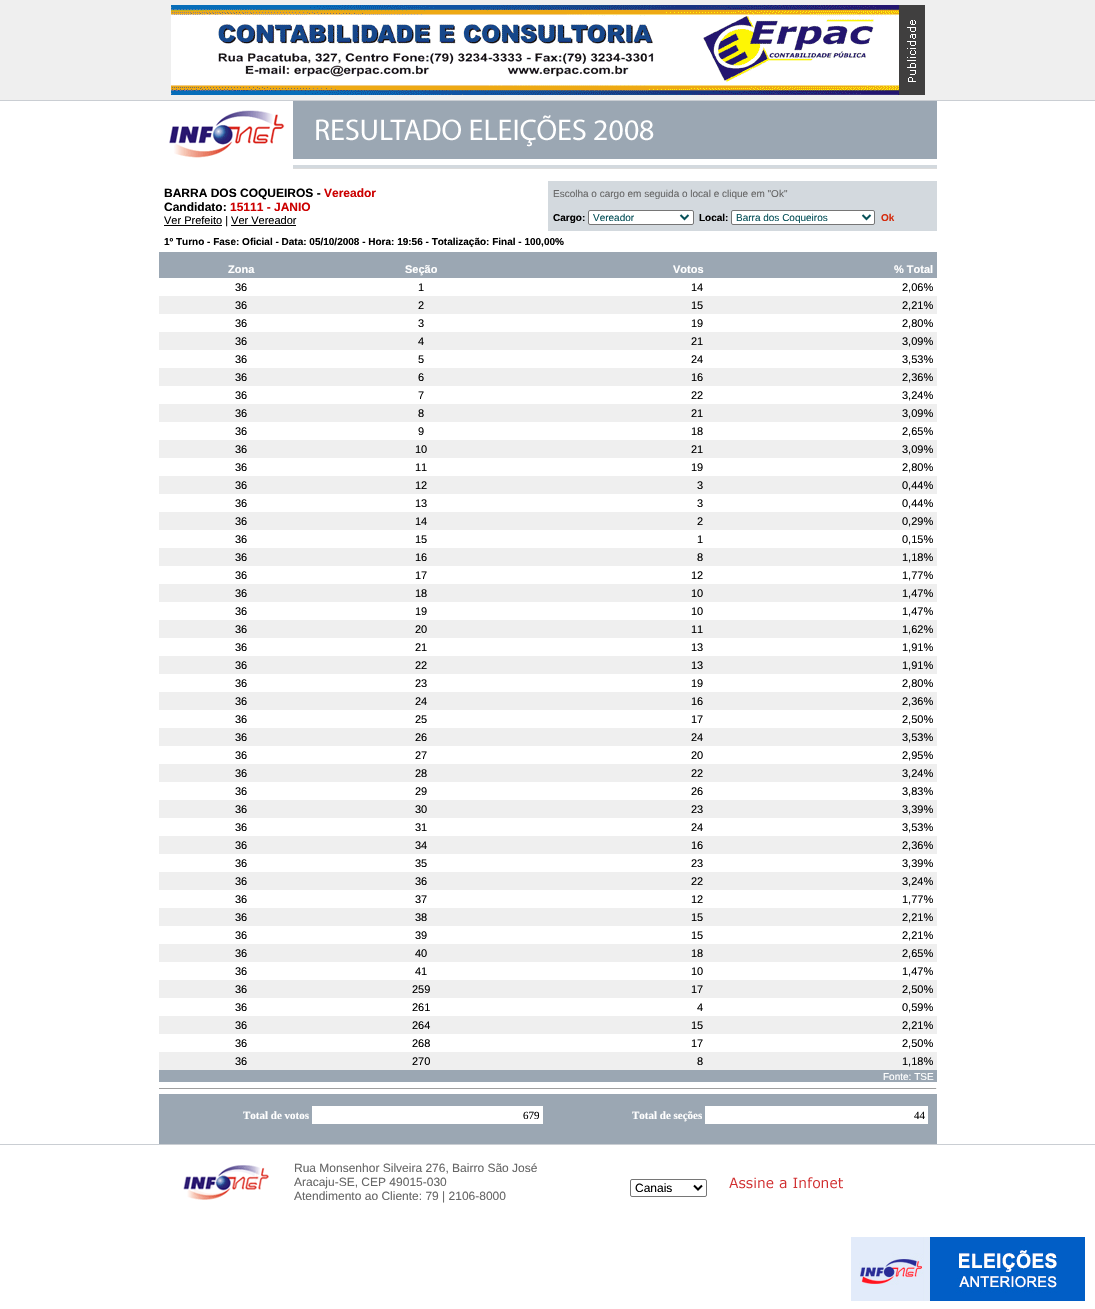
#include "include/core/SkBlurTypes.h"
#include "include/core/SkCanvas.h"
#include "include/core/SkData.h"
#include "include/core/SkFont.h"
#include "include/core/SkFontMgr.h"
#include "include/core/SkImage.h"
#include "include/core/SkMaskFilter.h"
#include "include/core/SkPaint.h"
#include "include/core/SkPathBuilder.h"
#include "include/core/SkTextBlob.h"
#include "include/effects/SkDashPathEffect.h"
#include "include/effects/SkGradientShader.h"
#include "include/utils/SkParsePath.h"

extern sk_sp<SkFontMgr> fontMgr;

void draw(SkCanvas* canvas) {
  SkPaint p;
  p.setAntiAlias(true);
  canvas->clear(SK_ColorWHITE);
  p.setColor(SkColorSetRGB(239, 239, 239));
  canvas->drawRect(SkRect::MakeLTRB(0, 0, 1095, 100), p);
  canvas->drawImageRect(SkImages::DeferredFromEncodedData(SkData::MakeFromFileName("images/1.png")), SkRect::MakeLTRB(171, 5, 899, 95), SkSamplingOptions());
  canvas->drawImageRect(SkImages::DeferredFromEncodedData(SkData::MakeFromFileName("images/2.png")), SkRect::MakeLTRB(899, 5, 925, 95), SkSamplingOptions());
  p.setColor(SkColorSetRGB(202, 206, 211));
  canvas->drawRect(SkRect::MakeLTRB(0, 100, 1095, 101), p);
  canvas->drawImageRect(SkImages::DeferredFromEncodedData(SkData::MakeFromFileName("images/3.png")), SkRect::MakeLTRB(169, 110, 285, 158), SkSamplingOptions());
  p.setColor(SkColorSetRGB(155, 167, 179));
  canvas->drawRect(SkRect::MakeLTRB(293, 101, 937, 159), p);
  canvas->drawImageRect(SkImages::DeferredFromEncodedData(SkData::MakeFromFileName("images/4.png")), SkRect::MakeLTRB(316, 115, 654, 147), SkSamplingOptions());
  p.setColor(SkColorSetRGB(211, 217, 222));
  canvas->drawRect(SkRect::MakeLTRB(293, 165, 937, 168), p);
  p.setColor(SkColorSetRGB(219, 219, 219));
  canvas->drawRect(SkRect::MakeLTRB(293, 168, 937, 169), p);
  p.setColor(SK_ColorBLACK);
  canvas->drawRect(SkRect::MakeLTRB(164, 225, 222, 226), p);
  canvas->drawRect(SkRect::MakeLTRB(231, 225, 296, 226), p);
  p.setColor(SkColorSetRGB(211, 217, 222));
  canvas->drawRect(SkRect::MakeLTRB(548, 181, 937, 231), p);
  p.setColor(SK_ColorWHITE);
  canvas->drawRoundRect(SkRect::MakeLTRB(588.5f, 210.5f, 693.5f, 224.5f), 1.5f, 1.5f, p);
  p.setStyle(SkPaint::kStroke_Style);
  p.setStrokeWidth(1);
  p.setColor(SkColorSetRGB(118, 118, 118));
  canvas->drawRoundRect(SkRect::MakeLTRB(588.5f, 210.5f, 693.5f, 224.5f), 1.5f, 1.5f, p);
  p.setStrokeWidth(2);
  p.setColor(SkColorSetRGB(8, 82, 90));
  canvas->drawPath(SkPathBuilder().moveTo(680.5f, 215).lineTo(684.5f, 219).lineTo(688.5f, 215).detach(), p);
  p.setStyle(SkPaint::kFill_Style);
  p.setColor(SK_ColorWHITE);
  canvas->drawRoundRect(SkRect::MakeLTRB(731.5f, 210.5f, 874.5f, 224.5f), 1.5f, 1.5f, p);
  p.setStyle(SkPaint::kStroke_Style);
  p.setStrokeWidth(1);
  p.setColor(SkColorSetRGB(118, 118, 118));
  canvas->drawRoundRect(SkRect::MakeLTRB(731.5f, 210.5f, 874.5f, 224.5f), 1.5f, 1.5f, p);
  p.setStrokeWidth(2);
  p.setColor(SkColorSetRGB(8, 82, 90));
  canvas->drawPath(SkPathBuilder().moveTo(862.5f, 215).lineTo(866.5f, 219).lineTo(870.5f, 215).detach(), p);
  p.setStyle(SkPaint::kFill_Style);
  p.setColor(SkColorSetRGB(155, 167, 179));
  canvas->drawRect(SkRect::MakeLTRB(159, 252, 937, 278), p);
  p.setColor(SkColorSetRGB(239, 239, 239));
  canvas->drawRect(SkRect::MakeLTRB(159, 296, 937, 314), p);
  canvas->drawRect(SkRect::MakeLTRB(159, 332, 937, 350), p);
  canvas->drawRect(SkRect::MakeLTRB(159, 368, 937, 386), p);
  canvas->drawRect(SkRect::MakeLTRB(159, 404, 937, 422), p);
  canvas->drawRect(SkRect::MakeLTRB(159, 440, 937, 458), p);
  canvas->drawRect(SkRect::MakeLTRB(159, 476, 937, 494), p);
  canvas->drawRect(SkRect::MakeLTRB(159, 512, 937, 530), p);
  canvas->drawRect(SkRect::MakeLTRB(159, 548, 937, 566), p);
  canvas->drawRect(SkRect::MakeLTRB(159, 584, 937, 602), p);
  canvas->drawRect(SkRect::MakeLTRB(159, 620, 937, 638), p);
  canvas->drawRect(SkRect::MakeLTRB(159, 656, 937, 674), p);
  canvas->drawRect(SkRect::MakeLTRB(159, 692, 937, 710), p);
  canvas->drawRect(SkRect::MakeLTRB(159, 728, 937, 746), p);
  canvas->drawRect(SkRect::MakeLTRB(159, 764, 937, 782), p);
  canvas->drawRect(SkRect::MakeLTRB(159, 800, 937, 818), p);
  canvas->drawRect(SkRect::MakeLTRB(159, 836, 937, 854), p);
  canvas->drawRect(SkRect::MakeLTRB(159, 872, 937, 890), p);
  canvas->drawRect(SkRect::MakeLTRB(159, 908, 937, 926), p);
  canvas->drawRect(SkRect::MakeLTRB(159, 944, 937, 962), p);
  canvas->drawRect(SkRect::MakeLTRB(159, 980, 937, 998), p);
  canvas->drawRect(SkRect::MakeLTRB(159, 1016, 937, 1034), p);
  canvas->drawRect(SkRect::MakeLTRB(159, 1052, 937, 1070), p);
  p.setColor(SkColorSetRGB(155, 167, 179));
  canvas->drawRect(SkRect::MakeLTRB(159, 1070, 937, 1082), p);
  p.setColor(SkColorSetRGB(159, 159, 159));
  canvas->drawRect(SkRect::MakeLTRB(159, 1088, 937, 1089), p);
  p.setColor(SkColorSetRGB(238, 238, 238));
  canvas->drawRect(SkRect::MakeLTRB(936, 1088, 937, 1089), p);
  p.setColor(SkColorSetRGB(155, 167, 179));
  canvas->drawRect(SkRect::MakeLTRB(159, 1094, 937, 1106), p);
  canvas->drawRect(SkRect::MakeLTRB(159, 1106, 312, 1124), p);
  canvas->drawRect(SkRect::MakeLTRB(543, 1106, 705, 1124), p);
  canvas->drawRect(SkRect::MakeLTRB(928, 1106, 937, 1124), p);
  canvas->drawRect(SkRect::MakeLTRB(159, 1124, 937, 1144), p);
  p.setColor(SkColorSetRGB(202, 206, 211));
  canvas->drawRect(SkRect::MakeLTRB(0, 1144, 1095, 1145), p);
  canvas->drawImageRect(SkImages::DeferredFromEncodedData(SkData::MakeFromFileName("images/5.png")), SkRect::MakeLTRB(183, 1165, 269, 1200), SkSamplingOptions());
  p.setStyle(SkPaint::kStroke_Style);
  p.setStrokeWidth(1);
  p.setColor(SkColorSetRGB(118, 118, 118));
  canvas->drawRoundRect(SkRect::MakeLTRB(630.5f, 1179.5f, 706.5f, 1196.5f), 1.5f, 1.5f, p);
  p.setStrokeWidth(2);
  p.setColor(SK_ColorBLACK);
  canvas->drawPath(SkPathBuilder().moveTo(694, 1185.5f).lineTo(698, 1189.5f).lineTo(702, 1185.5f).detach(), p);
  canvas->drawImageRect(SkImages::DeferredFromEncodedData(SkData::MakeFromFileName("images/6.png")), SkRect::MakeLTRB(729, 1177, 843, 1189), SkSamplingOptions());
  canvas->drawImageRect(SkImages::DeferredFromEncodedData(SkData::MakeFromFileName("images/7.png")), SkRect::MakeLTRB(851, 1237, 1085, 1301), SkSamplingOptions());
  SkFont font1(fontMgr->matchFamilyStyle("Liberation Sans", SkFontStyle::Bold()), 12);
  font1.setSubpixel(true);
  p.setStyle(SkPaint::kFill_Style);
  canvas->drawString("BARRA DOS COQUEIROS -", 164, 197, font1, p);
  p.setColor(SkColorSetRGB(204, 0, 0));
  canvas->drawString("Vereador", 324, 197, font1, p);
  p.setColor(SK_ColorBLACK);
  canvas->drawString("Candidato:", 164, 211, font1, p);
  p.setColor(SkColorSetRGB(204, 0, 0));
  canvas->drawString("15111 - JANIO", 230, 211, font1, p);
  SkFont font2(fontMgr->matchFamilyStyle("Liberation Sans", SkFontStyle::Normal()), 11);
  font2.setSubpixel(true);
  p.setColor(SK_ColorBLACK);
  canvas->drawString("Ver Prefeito | Ver Vereador", 164, 224, font2, p);
  SkFont font3(fontMgr->matchFamilyStyle("Liberation Sans", SkFontStyle::Normal()), 10);
  font3.setSubpixel(true);
  p.setColor(SkColorSetRGB(102, 102, 102));
  canvas->drawString("Escolha o cargo em seguida o local e clique em \"Ok\"", 553, 197, font3, p);
  SkFont font4(fontMgr->matchFamilyStyle("Liberation Sans", SkFontStyle::Bold()), 10);
  font4.setSubpixel(true);
  p.setColor(SK_ColorBLACK);
  canvas->drawString("Cargo:", 553, 221, font4, p);
  p.setColor(SkColorSetRGB(8, 82, 90));
  canvas->drawString("Vereador", 593, 221, font3, p);
  p.setColor(SK_ColorBLACK);
  canvas->drawString("Local:", 699, 221, font4, p);
  p.setColor(SkColorSetRGB(8, 82, 90));
  canvas->drawString("Barra dos Coqueiros", 736, 221, font3, p);
  p.setColor(SkColorSetRGB(213, 43, 13));
  canvas->drawString("Ok", 881, 221, font4, p);
  p.setColor(SK_ColorBLACK);
  canvas->drawString("1º Turno - Fase: Oficial - Data: 05/10/2008 - Hora: 19:56 - Totalização: Final - 100,00%", 164, 245, font4, p);
  SkFont font5(fontMgr->matchFamilyStyle("Liberation Sans", SkFontStyle::Bold()), 11);
  font5.setSubpixel(true);
  p.setColor(SK_ColorWHITE);
  canvas->drawString("Zona", 228, 273, font5, p);
  canvas->drawString("Seção", 405, 273, font5, p);
  canvas->drawString("Votos", 673, 273, font5, p);
  canvas->drawString("% Total", 894, 273, font5, p);
  p.setColor(SK_ColorBLACK);
  canvas->drawString("36", 235, 291, font2, p);
  canvas->drawString("1", 418, 291, font2, p);
  canvas->drawString("14", 691, 291, font2, p);
  canvas->drawString("2,06%", 902, 291, font2, p);
  canvas->drawString("36", 235, 309, font2, p);
  canvas->drawString("2", 418, 309, font2, p);
  canvas->drawString("15", 691, 309, font2, p);
  canvas->drawString("2,21%", 902, 309, font2, p);
  canvas->drawString("36", 235, 327, font2, p);
  canvas->drawString("3", 418, 327, font2, p);
  canvas->drawString("19", 691, 327, font2, p);
  canvas->drawString("2,80%", 902, 327, font2, p);
  canvas->drawString("36", 235, 345, font2, p);
  canvas->drawString("4", 418, 345, font2, p);
  canvas->drawString("21", 691, 345, font2, p);
  canvas->drawString("3,09%", 902, 345, font2, p);
  canvas->drawString("36", 235, 363, font2, p);
  canvas->drawString("5", 418, 363, font2, p);
  canvas->drawString("24", 691, 363, font2, p);
  canvas->drawString("3,53%", 902, 363, font2, p);
  canvas->drawString("36", 235, 381, font2, p);
  canvas->drawString("6", 418, 381, font2, p);
  canvas->drawString("16", 691, 381, font2, p);
  canvas->drawString("2,36%", 902, 381, font2, p);
  canvas->drawString("36", 235, 399, font2, p);
  canvas->drawString("7", 418, 399, font2, p);
  canvas->drawString("22", 691, 399, font2, p);
  canvas->drawString("3,24%", 902, 399, font2, p);
  canvas->drawString("36", 235, 417, font2, p);
  canvas->drawString("8", 418, 417, font2, p);
  canvas->drawString("21", 691, 417, font2, p);
  canvas->drawString("3,09%", 902, 417, font2, p);
  canvas->drawString("36", 235, 435, font2, p);
  canvas->drawString("9", 418, 435, font2, p);
  canvas->drawString("18", 691, 435, font2, p);
  canvas->drawString("2,65%", 902, 435, font2, p);
  canvas->drawString("36", 235, 453, font2, p);
  canvas->drawString("10", 415, 453, font2, p);
  canvas->drawString("21", 691, 453, font2, p);
  canvas->drawString("3,09%", 902, 453, font2, p);
  canvas->drawString("36", 235, 471, font2, p);
  canvas->drawString("11", 415, 471, font2, p);
  canvas->drawString("19", 691, 471, font2, p);
  canvas->drawString("2,80%", 902, 471, font2, p);
  canvas->drawString("36", 235, 489, font2, p);
  canvas->drawString("12", 415, 489, font2, p);
  canvas->drawString("3", 697, 489, font2, p);
  canvas->drawString("0,44%", 902, 489, font2, p);
  canvas->drawString("36", 235, 507, font2, p);
  canvas->drawString("13", 415, 507, font2, p);
  canvas->drawString("3", 697, 507, font2, p);
  canvas->drawString("0,44%", 902, 507, font2, p);
  canvas->drawString("36", 235, 525, font2, p);
  canvas->drawString("14", 415, 525, font2, p);
  canvas->drawString("2", 697, 525, font2, p);
  canvas->drawString("0,29%", 902, 525, font2, p);
  canvas->drawString("36", 235, 543, font2, p);
  canvas->drawString("15", 415, 543, font2, p);
  canvas->drawString("1", 697, 543, font2, p);
  canvas->drawString("0,15%", 902, 543, font2, p);
  canvas->drawString("36", 235, 561, font2, p);
  canvas->drawString("16", 415, 561, font2, p);
  canvas->drawString("8", 697, 561, font2, p);
  canvas->drawString("1,18%", 902, 561, font2, p);
  canvas->drawString("36", 235, 579, font2, p);
  canvas->drawString("17", 415, 579, font2, p);
  canvas->drawString("12", 691, 579, font2, p);
  canvas->drawString("1,77%", 902, 579, font2, p);
  canvas->drawString("36", 235, 597, font2, p);
  canvas->drawString("18", 415, 597, font2, p);
  canvas->drawString("10", 691, 597, font2, p);
  canvas->drawString("1,47%", 902, 597, font2, p);
  canvas->drawString("36", 235, 615, font2, p);
  canvas->drawString("19", 415, 615, font2, p);
  canvas->drawString("10", 691, 615, font2, p);
  canvas->drawString("1,47%", 902, 615, font2, p);
  canvas->drawString("36", 235, 633, font2, p);
  canvas->drawString("20", 415, 633, font2, p);
  canvas->drawString("11", 691, 633, font2, p);
  canvas->drawString("1,62%", 902, 633, font2, p);
  canvas->drawString("36", 235, 651, font2, p);
  canvas->drawString("21", 415, 651, font2, p);
  canvas->drawString("13", 691, 651, font2, p);
  canvas->drawString("1,91%", 902, 651, font2, p);
  canvas->drawString("36", 235, 669, font2, p);
  canvas->drawString("22", 415, 669, font2, p);
  canvas->drawString("13", 691, 669, font2, p);
  canvas->drawString("1,91%", 902, 669, font2, p);
  canvas->drawString("36", 235, 687, font2, p);
  canvas->drawString("23", 415, 687, font2, p);
  canvas->drawString("19", 691, 687, font2, p);
  canvas->drawString("2,80%", 902, 687, font2, p);
  canvas->drawString("36", 235, 705, font2, p);
  canvas->drawString("24", 415, 705, font2, p);
  canvas->drawString("16", 691, 705, font2, p);
  canvas->drawString("2,36%", 902, 705, font2, p);
  canvas->drawString("36", 235, 723, font2, p);
  canvas->drawString("25", 415, 723, font2, p);
  canvas->drawString("17", 691, 723, font2, p);
  canvas->drawString("2,50%", 902, 723, font2, p);
  canvas->drawString("36", 235, 741, font2, p);
  canvas->drawString("26", 415, 741, font2, p);
  canvas->drawString("24", 691, 741, font2, p);
  canvas->drawString("3,53%", 902, 741, font2, p);
  canvas->drawString("36", 235, 759, font2, p);
  canvas->drawString("27", 415, 759, font2, p);
  canvas->drawString("20", 691, 759, font2, p);
  canvas->drawString("2,95%", 902, 759, font2, p);
  canvas->drawString("36", 235, 777, font2, p);
  canvas->drawString("28", 415, 777, font2, p);
  canvas->drawString("22", 691, 777, font2, p);
  canvas->drawString("3,24%", 902, 777, font2, p);
  canvas->drawString("36", 235, 795, font2, p);
  canvas->drawString("29", 415, 795, font2, p);
  canvas->drawString("26", 691, 795, font2, p);
  canvas->drawString("3,83%", 902, 795, font2, p);
  canvas->drawString("36", 235, 813, font2, p);
  canvas->drawString("30", 415, 813, font2, p);
  canvas->drawString("23", 691, 813, font2, p);
  canvas->drawString("3,39%", 902, 813, font2, p);
  canvas->drawString("36", 235, 831, font2, p);
  canvas->drawString("31", 415, 831, font2, p);
  canvas->drawString("24", 691, 831, font2, p);
  canvas->drawString("3,53%", 902, 831, font2, p);
  canvas->drawString("36", 235, 849, font2, p);
  canvas->drawString("34", 415, 849, font2, p);
  canvas->drawString("16", 691, 849, font2, p);
  canvas->drawString("2,36%", 902, 849, font2, p);
  canvas->drawString("36", 235, 867, font2, p);
  canvas->drawString("35", 415, 867, font2, p);
  canvas->drawString("23", 691, 867, font2, p);
  canvas->drawString("3,39%", 902, 867, font2, p);
  canvas->drawString("36", 235, 885, font2, p);
  canvas->drawString("36", 415, 885, font2, p);
  canvas->drawString("22", 691, 885, font2, p);
  canvas->drawString("3,24%", 902, 885, font2, p);
  canvas->drawString("36", 235, 903, font2, p);
  canvas->drawString("37", 415, 903, font2, p);
  canvas->drawString("12", 691, 903, font2, p);
  canvas->drawString("1,77%", 902, 903, font2, p);
  canvas->drawString("36", 235, 921, font2, p);
  canvas->drawString("38", 415, 921, font2, p);
  canvas->drawString("15", 691, 921, font2, p);
  canvas->drawString("2,21%", 902, 921, font2, p);
  canvas->drawString("36", 235, 939, font2, p);
  canvas->drawString("39", 415, 939, font2, p);
  canvas->drawString("15", 691, 939, font2, p);
  canvas->drawString("2,21%", 902, 939, font2, p);
  canvas->drawString("36", 235, 957, font2, p);
  canvas->drawString("40", 415, 957, font2, p);
  canvas->drawString("18", 691, 957, font2, p);
  canvas->drawString("2,65%", 902, 957, font2, p);
  canvas->drawString("36", 235, 975, font2, p);
  canvas->drawString("41", 415, 975, font2, p);
  canvas->drawString("10", 691, 975, font2, p);
  canvas->drawString("1,47%", 902, 975, font2, p);
  canvas->drawString("36", 235, 993, font2, p);
  canvas->drawString("259", 412, 993, font2, p);
  canvas->drawString("17", 691, 993, font2, p);
  canvas->drawString("2,50%", 902, 993, font2, p);
  canvas->drawString("36", 235, 1011, font2, p);
  canvas->drawString("261", 412, 1011, font2, p);
  canvas->drawString("4", 697, 1011, font2, p);
  canvas->drawString("0,59%", 902, 1011, font2, p);
  canvas->drawString("36", 235, 1029, font2, p);
  canvas->drawString("264", 412, 1029, font2, p);
  canvas->drawString("15", 691, 1029, font2, p);
  canvas->drawString("2,21%", 902, 1029, font2, p);
  canvas->drawString("36", 235, 1047, font2, p);
  canvas->drawString("268", 412, 1047, font2, p);
  canvas->drawString("17", 691, 1047, font2, p);
  canvas->drawString("2,50%", 902, 1047, font2, p);
  canvas->drawString("36", 235, 1065, font2, p);
  canvas->drawString("270", 412, 1065, font2, p);
  canvas->drawString("8", 697, 1065, font2, p);
  canvas->drawString("1,18%", 902, 1065, font2, p);
  p.setColor(SK_ColorWHITE);
  canvas->drawString("Fonte: TSE", 883, 1080, font3, p);
  SkFont font6(fontMgr->matchFamilyStyle("Liberation Serif", SkFontStyle::Bold()), 11);
  font6.setSubpixel(true);
  canvas->drawString("Total de votos", 243, 1119, font6, p);
  SkFont font7(fontMgr->matchFamilyStyle("Liberation Serif", SkFontStyle::Normal()), 11);
  font7.setSubpixel(true);
  p.setColor(SK_ColorBLACK);
  canvas->drawString("679", 523, 1119, font7, p);
  p.setColor(SK_ColorWHITE);
  canvas->drawString("Total de seções", 632, 1119, font6, p);
  p.setColor(SK_ColorBLACK);
  canvas->drawString("44", 914, 1119, font7, p);
  SkFont font8(fontMgr->matchFamilyStyle("Liberation Sans", SkFontStyle::Normal()), 12);
  font8.setSubpixel(true);
  p.setColor(SkColorSetRGB(102, 102, 102));
  canvas->drawString("Rua Monsenhor Silveira 276, Bairro São José", 294, 1172, font8, p);
  canvas->drawString("Aracaju-SE, CEP 49015-030", 294, 1186, font8, p);
  canvas->drawString("Atendimento ao Cliente: 79 | 2106-8000", 294, 1200, font8, p);
  p.setColor(SK_ColorBLACK);
  canvas->drawString("Canais", 635, 1192, font8, p);
}
